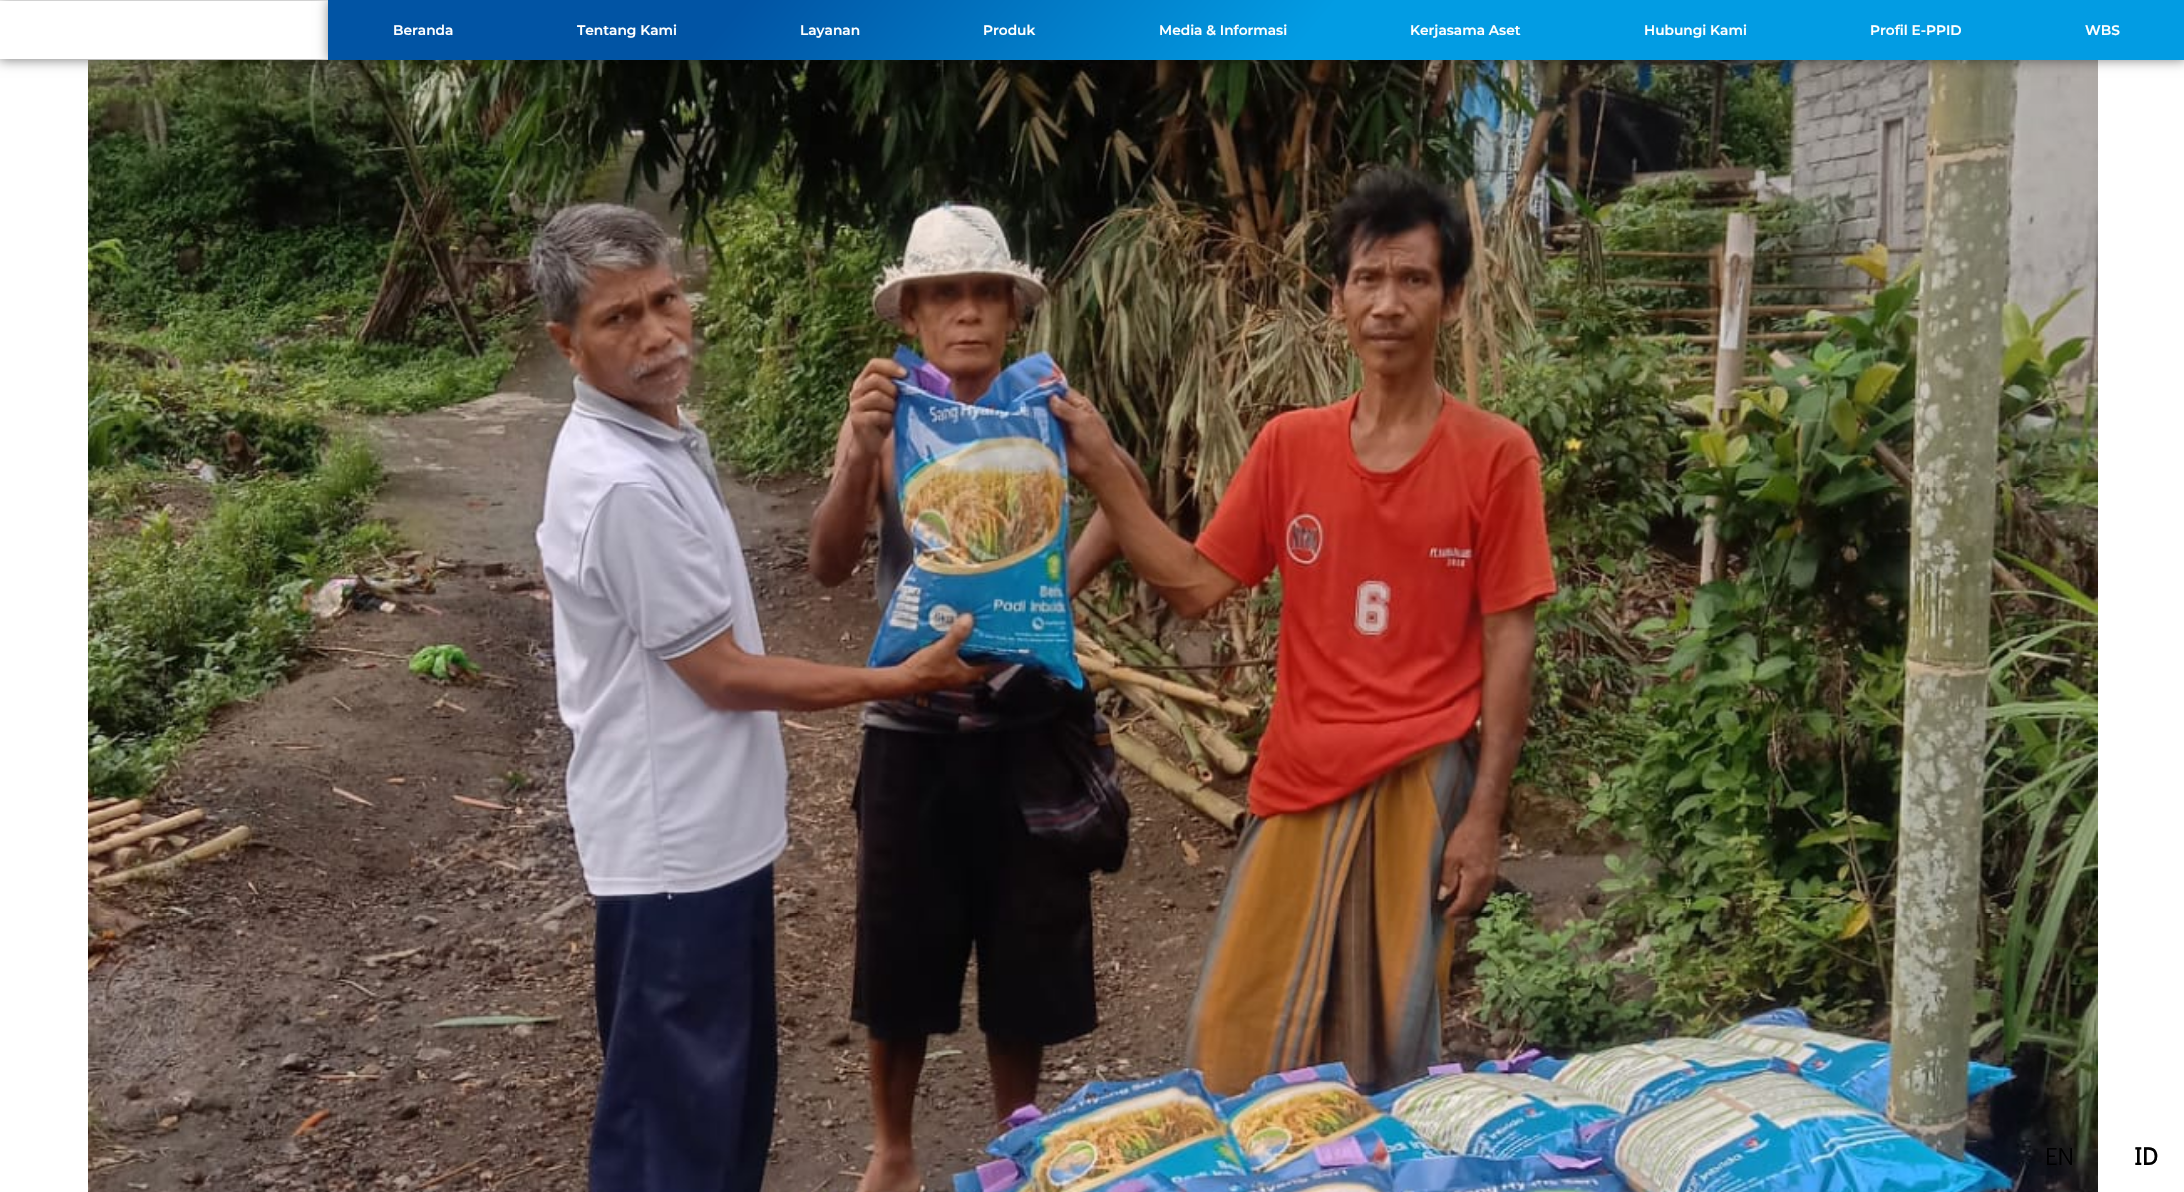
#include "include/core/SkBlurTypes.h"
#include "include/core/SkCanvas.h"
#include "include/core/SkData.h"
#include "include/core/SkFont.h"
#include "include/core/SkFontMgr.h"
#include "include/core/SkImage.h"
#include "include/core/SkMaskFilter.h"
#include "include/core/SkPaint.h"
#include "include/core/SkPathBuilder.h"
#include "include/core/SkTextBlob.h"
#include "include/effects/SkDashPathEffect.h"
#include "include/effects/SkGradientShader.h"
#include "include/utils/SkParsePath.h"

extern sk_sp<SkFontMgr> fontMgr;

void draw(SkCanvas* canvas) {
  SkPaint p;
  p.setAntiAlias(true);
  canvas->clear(SK_ColorWHITE);
  canvas->drawImageRect(SkImages::DeferredFromEncodedData(SkData::MakeFromFileName("images/1.png")), SkRect::MakeLTRB(88, 60, 2098, 1192), SkSamplingOptions());
  p.setColor(SkColorSetARGB(128, 0, 0, 0));
  p.setMaskFilter(SkMaskFilter::MakeBlur(kNormal_SkBlurStyle, 6));
  canvas->drawRect(SkRect::MakeLTRB(-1, 3, 326, 60), p);
  p.setMaskFilter(nullptr);
  p.setColor(SK_ColorWHITE);
  canvas->drawRect(SkRect::MakeLTRB(0, 1, 328, 59), p);
  p.setColor(SkColorSetARGB(128, 0, 0, 0));
  p.setMaskFilter(SkMaskFilter::MakeBlur(kNormal_SkBlurStyle, 6));
  canvas->drawRect(SkRect::MakeLTRB(329, 0, 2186, 60), p);
  p.setMaskFilter(nullptr);
  {
    const SkColor colors[] = {SkColorSetRGB(1, 84, 164), SkColorSetRGB(2, 156, 227)};
    const float stops[] = {0.22f, 0.53f};
    const SkPoint ends[] = {{696, -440}, {1816, 500}};
    p.setShader(SkGradientShader::MakeLinear(ends, colors, stops, 2, SkTileMode::kClamp));
    p.setAlpha(255);
  }
  canvas->drawRect(SkRect::MakeLTRB(328, 0, 2184, 60), p);
  SkFont font1(fontMgr->matchFamilyStyle("Montserrat", SkFontStyle(600, SkFontStyle::kNormal_Width, SkFontStyle::kUpright_Slant)), 13.75f);
  font1.setSubpixel(true);
  p.setShader(nullptr);
  p.setColor(SK_ColorWHITE);
  canvas->drawString("Beranda", 393, 35, font1, p);
  canvas->drawString("Tentang Kami", 577, 35, font1, p);
  canvas->drawString("Layanan", 800, 35, font1, p);
  canvas->drawString("Produk", 983, 35, font1, p);
  canvas->drawString("Media & Informasi", 1159, 35, font1, p);
  canvas->drawString("Kerjasama Aset", 1410, 35, font1, p);
  canvas->drawString("Hubungi Kami", 1644, 35, font1, p);
  canvas->drawString("Profil E-PPID", 1870, 35, font1, p);
  canvas->drawString("WBS", 2085, 35, font1, p);
  SkFont font2(fontMgr->matchFamilyStyle("Didact Gothic", SkFontStyle::Normal()), 25);
  font2.setSubpixel(true);
  p.setColor(SK_ColorBLACK);
  canvas->drawString("EN", 2045, 1165, font2, p);
  SkFont font3(fontMgr->matchFamilyStyle("Didact Gothic", SkFontStyle::Bold()), 25);
  font3.setSubpixel(true);
  canvas->drawString("ID", 2134, 1165, font3, p);
}
